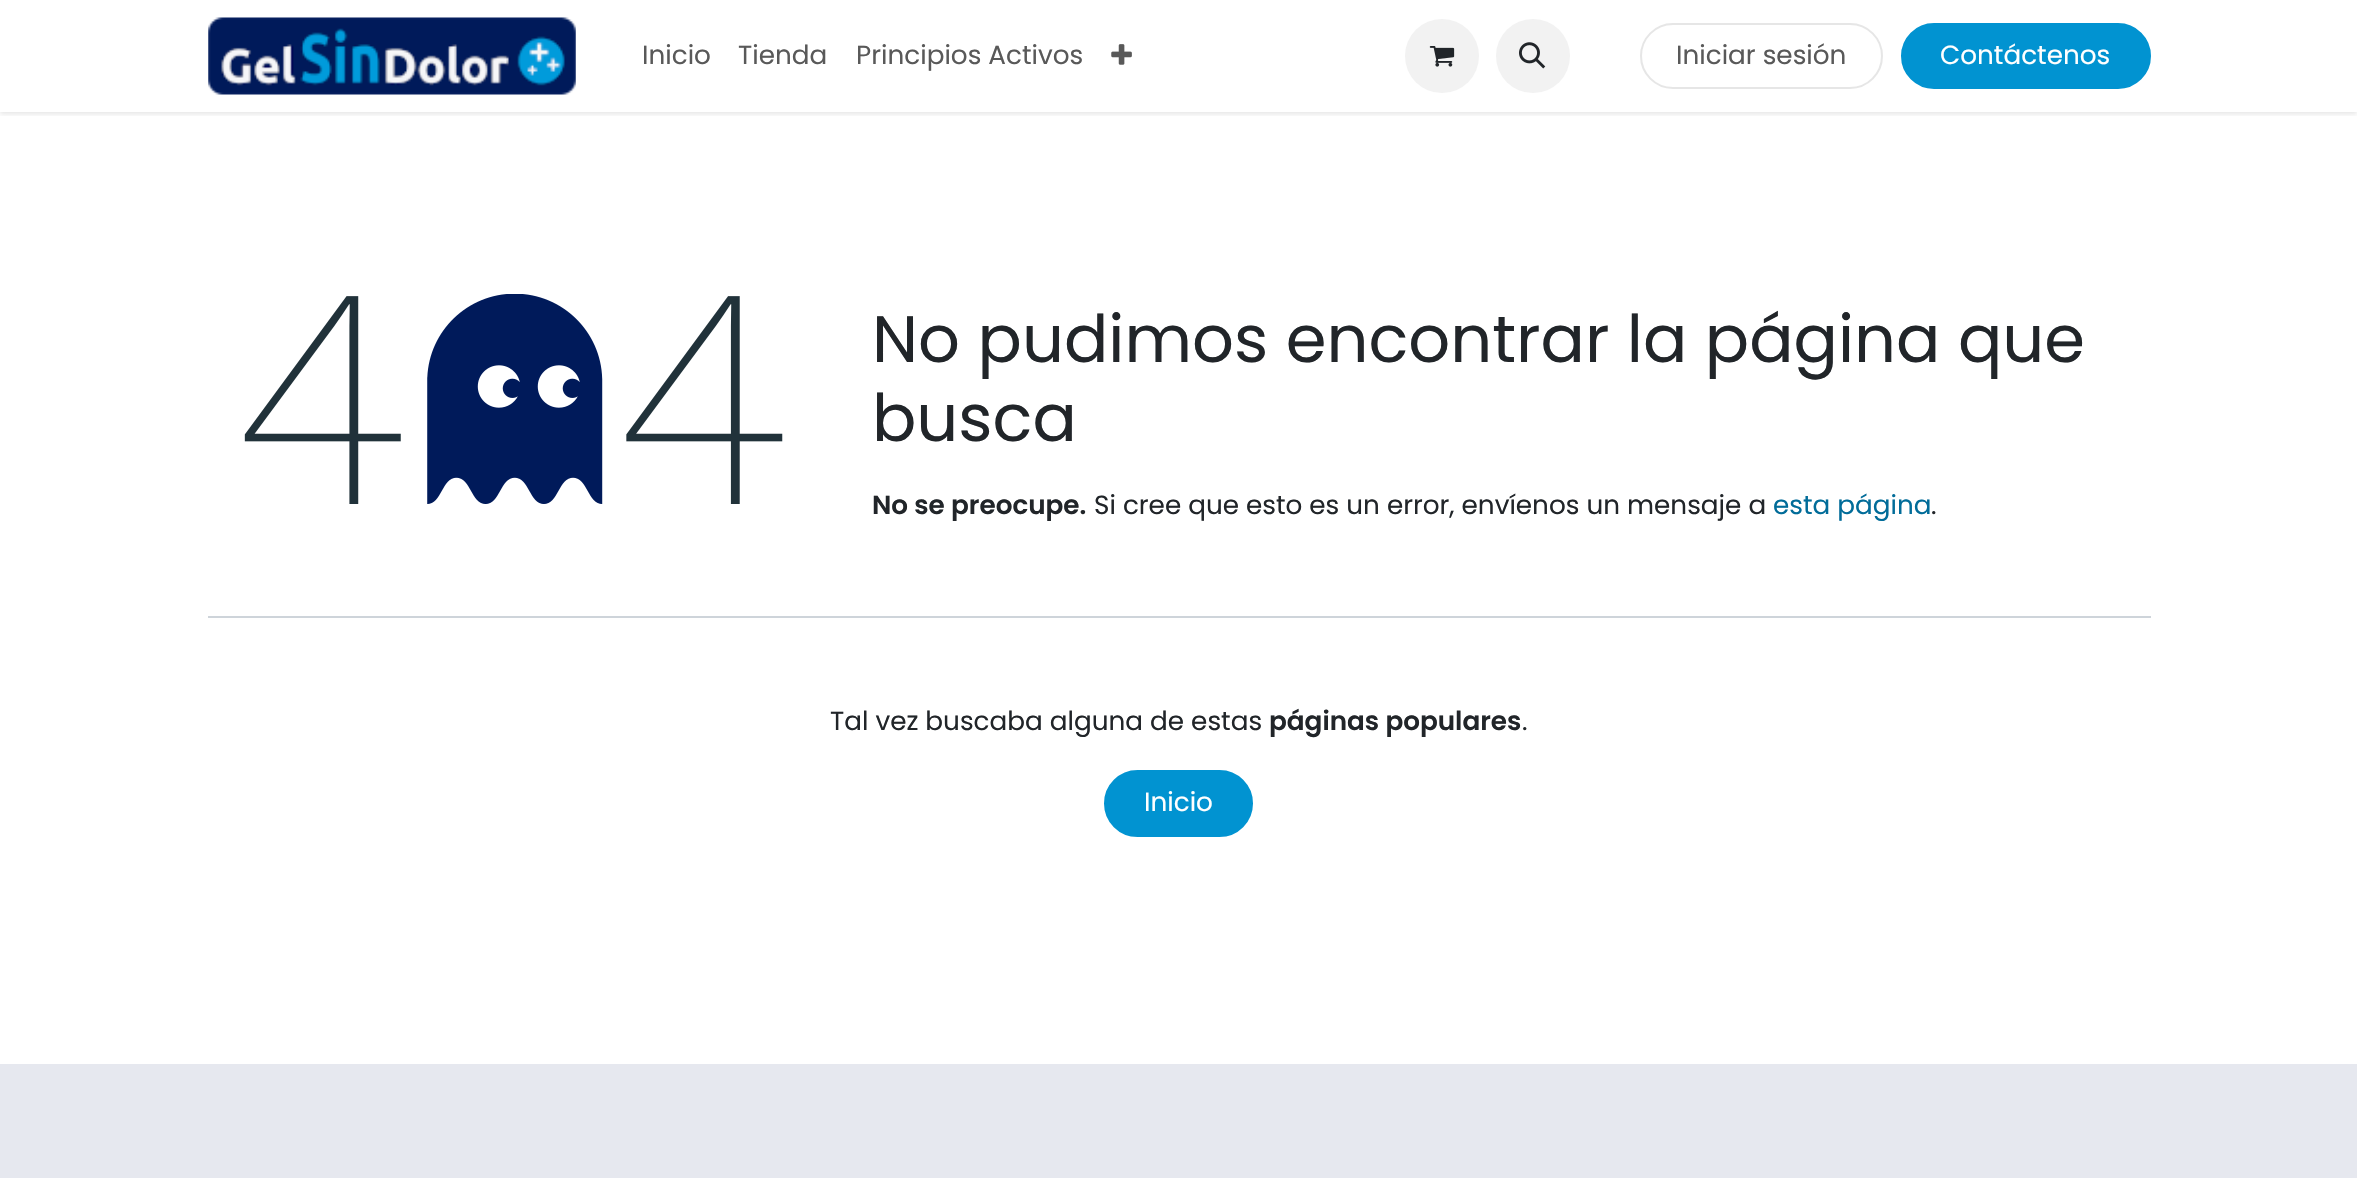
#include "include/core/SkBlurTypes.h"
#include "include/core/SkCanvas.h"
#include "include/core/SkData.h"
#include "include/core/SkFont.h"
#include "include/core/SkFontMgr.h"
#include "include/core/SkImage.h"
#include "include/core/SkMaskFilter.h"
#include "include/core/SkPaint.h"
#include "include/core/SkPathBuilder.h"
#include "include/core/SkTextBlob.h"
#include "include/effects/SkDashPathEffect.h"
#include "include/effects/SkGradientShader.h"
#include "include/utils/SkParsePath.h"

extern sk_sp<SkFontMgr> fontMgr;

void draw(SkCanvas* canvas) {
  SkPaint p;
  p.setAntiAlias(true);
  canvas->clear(SK_ColorWHITE);
  canvas->save();
  canvas->clipRect(SkRect::MakeLTRB(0, 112, 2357, 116));
  p.setColor(SkColorSetARGB(26, 0, 0, 0));
  p.setMaskFilter(SkMaskFilter::MakeBlur(kNormal_SkBlurStyle, 2.5f));
  canvas->drawRect(SkRect::MakeLTRB(0, 2, 2357, 114), p);
  p.setMaskFilter(nullptr);
  canvas->restore();
  canvas->drawImageRect(SkImages::DeferredFromEncodedData(SkData::MakeFromFileName("images/1.png")), SkRect::MakeLTRB(208, 17, 576, 95), SkSamplingOptions());
  canvas->drawImageRect(SkImages::DeferredFromEncodedData(SkData::MakeFromFileName("images/2.png")), SkRect::MakeLTRB(1111, 44, 1132, 65), SkSamplingOptions());
  p.setColor(SkColorSetRGB(242, 242, 242));
  canvas->drawCircle(1442, 56, 37, p);
  canvas->drawImageRect(SkImages::DeferredFromEncodedData(SkData::MakeFromFileName("images/3.png")), SkRect::MakeLTRB(1429, 46, 1455, 67), SkSamplingOptions());
  canvas->drawCircle(1533, 56, 37, p);
  canvas->drawImageRect(SkImages::DeferredFromEncodedData(SkData::MakeFromFileName("images/4.png")), SkRect::MakeLTRB(1519, 42, 1546, 69), SkSamplingOptions());
  p.setStyle(SkPaint::kStroke_Style);
  p.setStrokeWidth(2);
  p.setColor(SkColorSetRGB(230, 230, 230));
  canvas->drawRoundRect(SkRect::MakeLTRB(1641, 24, 1882, 88), 32, 32, p);
  p.setStyle(SkPaint::kFill_Style);
  p.setColor(SkColorSetRGB(1, 147, 209));
  canvas->drawRoundRect(SkRect::MakeLTRB(1902, 24, 2150, 88), 32, 32, p);
  p.setStyle(SkPaint::kStroke_Style);
  canvas->drawRoundRect(SkRect::MakeLTRB(1902, 24, 2150, 88), 32, 32, p);
  canvas->drawImageRect(SkImages::DeferredFromEncodedData(SkData::MakeFromFileName("images/5.png")), SkRect::MakeLTRB(244, 294, 783, 504), SkSamplingOptions());
  p.setStyle(SkPaint::kFill_Style);
  p.setColor(SkColorSetRGB(206, 212, 218));
  canvas->drawRect(SkRect::MakeLTRB(208, 616, 2151, 618), p);
  p.setColor(SkColorSetRGB(1, 147, 209));
  canvas->drawRoundRect(SkRect::MakeLTRB(1105, 771, 1252, 836), 32.5f, 32.5f, p);
  p.setStyle(SkPaint::kStroke_Style);
  canvas->drawRoundRect(SkRect::MakeLTRB(1105, 771, 1252, 836), 32.5f, 32.5f, p);
  p.setStyle(SkPaint::kFill_Style);
  p.setColor(SkColorSetRGB(230, 232, 239));
  canvas->drawRect(SkRect::MakeLTRB(0, 1064, 2357, 1178), p);
  SkFont font1(fontMgr->matchFamilyStyle("Poppins", SkFontStyle::Normal()), 26.25f);
  font1.setSubpixel(true);
  p.setColor(SkColorSetRGB(89, 89, 89));
  canvas->drawString("Inicio", 642, 64, font1, p);
  canvas->drawString("Tienda", 738, 64, font1, p);
  canvas->drawString("Principios Activos", 856, 64, font1, p);
  canvas->drawString("Iniciar sesión", 1676, 64, font1, p);
  p.setColor(SK_ColorWHITE);
  canvas->drawString("Contáctenos", 1940, 64, font1, p);
  SkFont font2(fontMgr->matchFamilyStyle("Poppins", SkFontStyle::Normal()), 65.6f);
  font2.setSubpixel(true);
  p.setColor(SkColorSetRGB(33, 37, 41));
  canvas->drawString("No pudimos encontrar la página que", 872, 362, font2, p);
  canvas->drawString("busca", 872, 441, font2, p);
  SkFont font3(fontMgr->matchFamilyStyle("Poppins", SkFontStyle(600, SkFontStyle::kNormal_Width, SkFontStyle::kUpright_Slant)), 26.25f);
  font3.setSubpixel(true);
  canvas->drawString("No se preocupe.", 872, 514, font3, p);
  canvas->drawString("Si cree que esto es un error, envíenos un mensaje a", 1094, 514, font1, p);
  p.setColor(SkColorSetRGB(1, 108, 153));
  canvas->drawString("esta página", 1773, 514, font1, p);
  p.setColor(SkColorSetRGB(33, 37, 41));
  canvas->drawString(".", 1931, 514, font1, p);
  canvas->drawString("Tal vez buscaba alguna de estas", 830, 730, font1, p);
  canvas->drawString("páginas populares", 1269, 730, font3, p);
  canvas->drawString(".", 1522, 730, font1, p);
  p.setColor(SK_ColorWHITE);
  canvas->drawString("Inicio", 1144, 811, font1, p);
}
